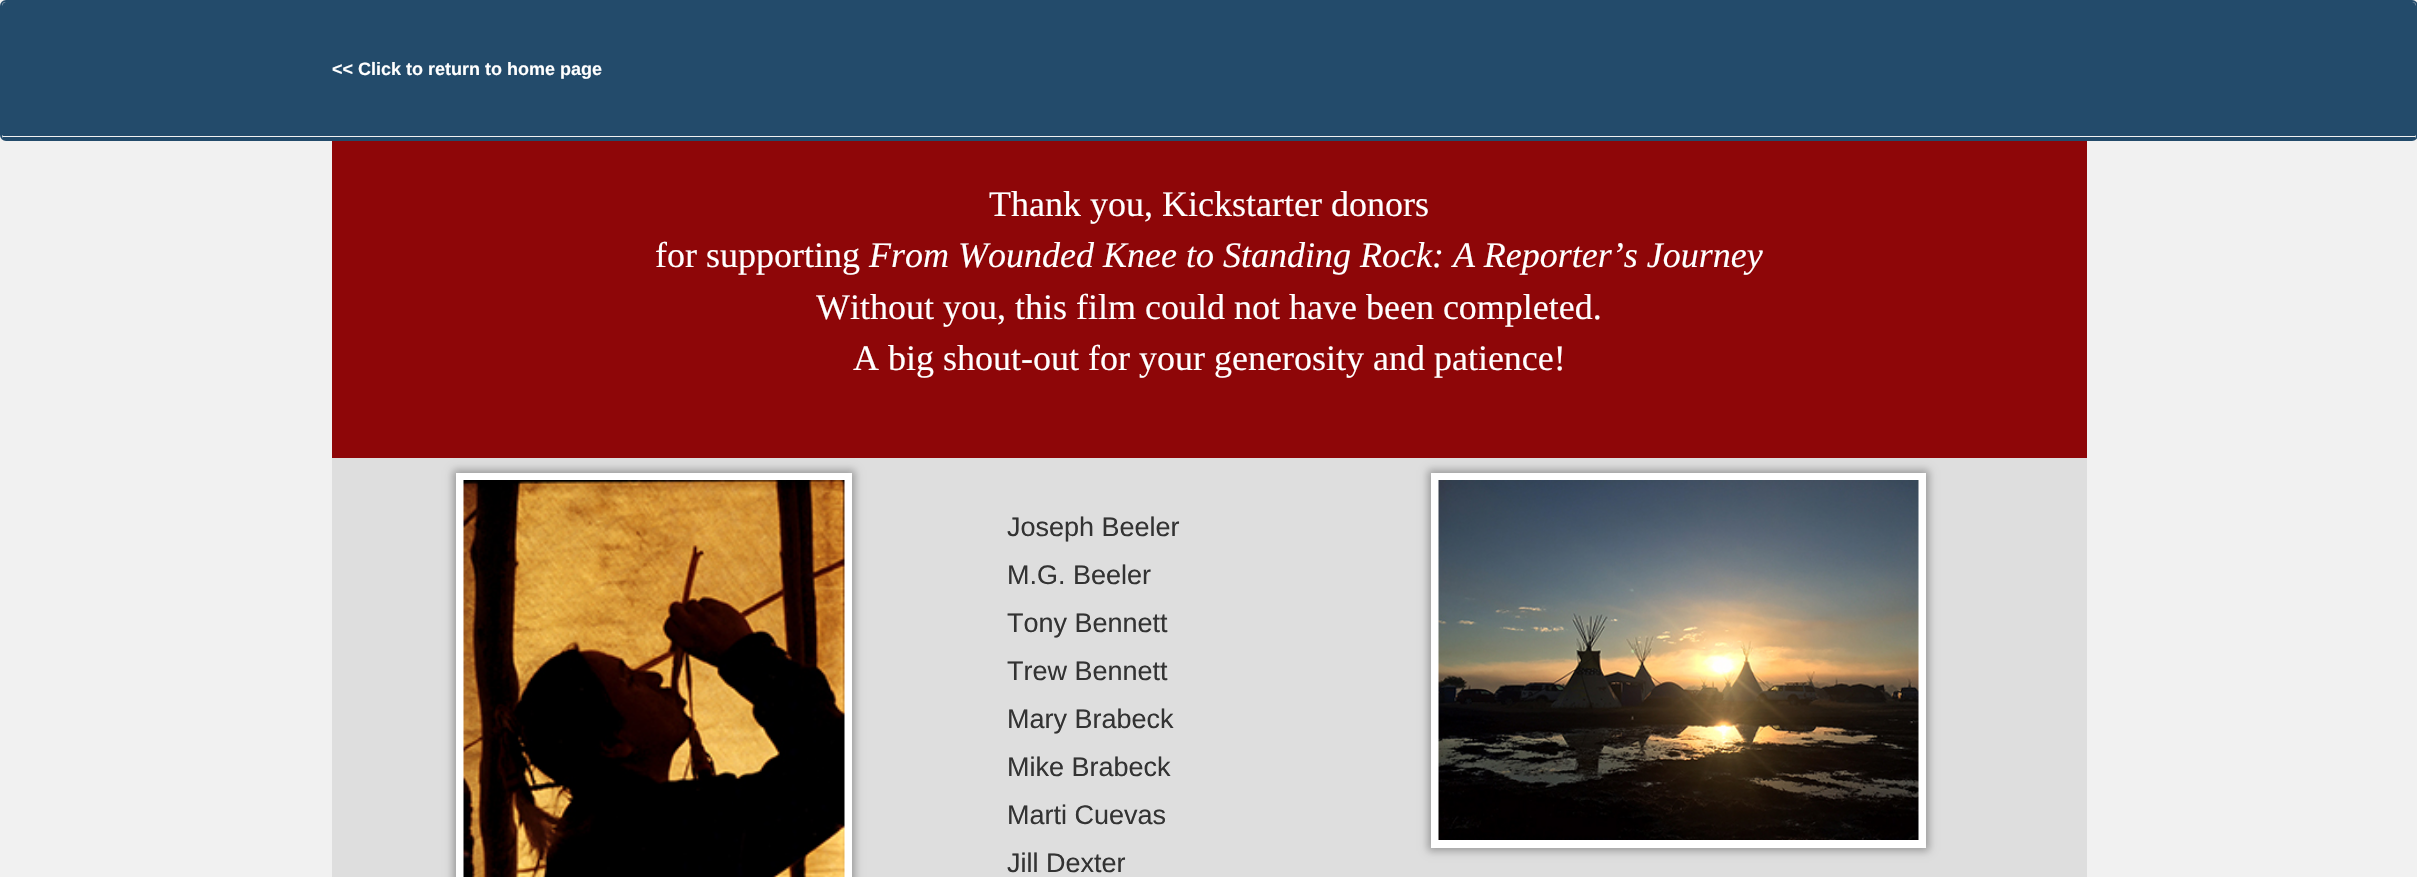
#include "include/core/SkBlurTypes.h"
#include "include/core/SkCanvas.h"
#include "include/core/SkData.h"
#include "include/core/SkFont.h"
#include "include/core/SkFontMgr.h"
#include "include/core/SkImage.h"
#include "include/core/SkMaskFilter.h"
#include "include/core/SkPaint.h"
#include "include/core/SkPathBuilder.h"
#include "include/core/SkTextBlob.h"
#include "include/effects/SkDashPathEffect.h"
#include "include/effects/SkGradientShader.h"
#include "include/utils/SkParsePath.h"

extern sk_sp<SkFontMgr> fontMgr;

void draw(SkCanvas* canvas) {
  SkPaint p;
  p.setAntiAlias(true);
  canvas->clear(SkColorSetRGB(241, 241, 241));
  p.setColor(SkColorSetRGB(35, 75, 107));
  canvas->drawPath(SkPathBuilder().moveTo(6, 2).lineTo(2412, 2).cubicTo(2414, 2, 2416, 4, 2416, 6).lineTo(2416, 135).cubicTo(2416, 136, 2414, 136, 2412, 136).lineTo(6, 136).cubicTo(4, 136, 2, 136, 2, 135).lineTo(2, 6).cubicTo(2, 4, 4, 2, 6, 2).close().detach(), p);
  p.setStyle(SkPaint::kStroke_Style);
  p.setStrokeWidth(2);
  canvas->drawRoundRect(SkRect::MakeLTRB(1, 1, 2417, 140), 5, 5, p);
  p.setStyle(SkPaint::kFill_Style);
  canvas->drawRect(SkRect::MakeLTRB(3, 137, 2415, 139), p);
  p.setColor(SkColorSetRGB(222, 222, 222));
  canvas->drawRect(SkRect::MakeLTRB(332, 458, 2087, 877), p);
  p.setColor(SkColorSetRGB(142, 6, 8));
  canvas->drawRect(SkRect::MakeLTRB(332, 141, 2087, 458), p);
  p.setColor(SkColorSetARGB(77, 0, 0, 0));
  p.setMaskFilter(SkMaskFilter::MakeBlur(kNormal_SkBlurStyle, 4));
  canvas->drawRect(SkRect::MakeLTRB(453, 470, 855, 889), p);
  p.setMaskFilter(nullptr);
  p.setStyle(SkPaint::kStroke_Style);
  p.setStrokeWidth(8);
  p.setColor(SK_ColorWHITE);
  canvas->drawRect(SkRect::MakeLTRB(460, 477, 848, 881), p);
  canvas->drawImageRect(SkImages::DeferredFromEncodedData(SkData::MakeFromFileName("images/1.png")), SkRect::MakeLTRB(463, 480, 845, 877), SkSamplingOptions());
  p.setStyle(SkPaint::kFill_Style);
  p.setColor(SkColorSetARGB(77, 0, 0, 0));
  p.setMaskFilter(SkMaskFilter::MakeBlur(kNormal_SkBlurStyle, 4));
  canvas->drawRect(SkRect::MakeLTRB(1428, 470, 1929, 851), p);
  p.setMaskFilter(nullptr);
  p.setStyle(SkPaint::kStroke_Style);
  p.setColor(SK_ColorWHITE);
  canvas->drawRect(SkRect::MakeLTRB(1435, 477, 1922, 844), p);
  canvas->drawImageRect(SkImages::DeferredFromEncodedData(SkData::MakeFromFileName("images/2.png")), SkRect::MakeLTRB(1438, 480, 1919, 840), SkSamplingOptions());
  SkFont font1(fontMgr->matchFamilyStyle("Liberation Sans", SkFontStyle::Bold()), 18);
  font1.setSubpixel(true);
  p.setStyle(SkPaint::kFill_Style);
  canvas->drawString("<< Click to return to home page", 332, 75, font1, p);
  SkFont font2(fontMgr->matchFamilyStyle("Liberation Serif", SkFontStyle::Normal()), 36);
  font2.setSubpixel(true);
  canvas->drawString("Thank you, Kickstarter donors", 989, 216, font2, p);
  canvas->drawString("for supporting", 655, 267, font2, p);
  SkFont font3(fontMgr->matchFamilyStyle("Liberation Serif", SkFontStyle::Italic()), 36);
  font3.setSubpixel(true);
  canvas->drawString("From Wounded Knee to Standing Rock: A Reporter’s Journey", 869, 267, font3, p);
  canvas->drawString("Without you, this film could not have been completed.", 816, 319, font2, p);
  canvas->drawString("A big shout-out for your generosity and patience!", 853, 370, font2, p);
  SkFont font4(fontMgr->matchFamilyStyle("Liberation Sans", SkFontStyle::Normal()), 27);
  font4.setSubpixel(true);
  p.setColor(SkColorSetRGB(51, 51, 51));
  canvas->drawString("Joseph Beeler", 1007, 536, font4, p);
  canvas->drawString("M.G. Beeler", 1007, 584, font4, p);
  canvas->drawString("Tony Bennett", 1007, 632, font4, p);
  canvas->drawString("Trew Bennett", 1007, 680, font4, p);
  canvas->drawString("Mary Brabeck", 1007, 728, font4, p);
  canvas->drawString("Mike Brabeck", 1007, 776, font4, p);
  canvas->drawString("Marti Cuevas", 1007, 824, font4, p);
  canvas->drawString("Jill Dexter", 1007, 872, font4, p);
}
